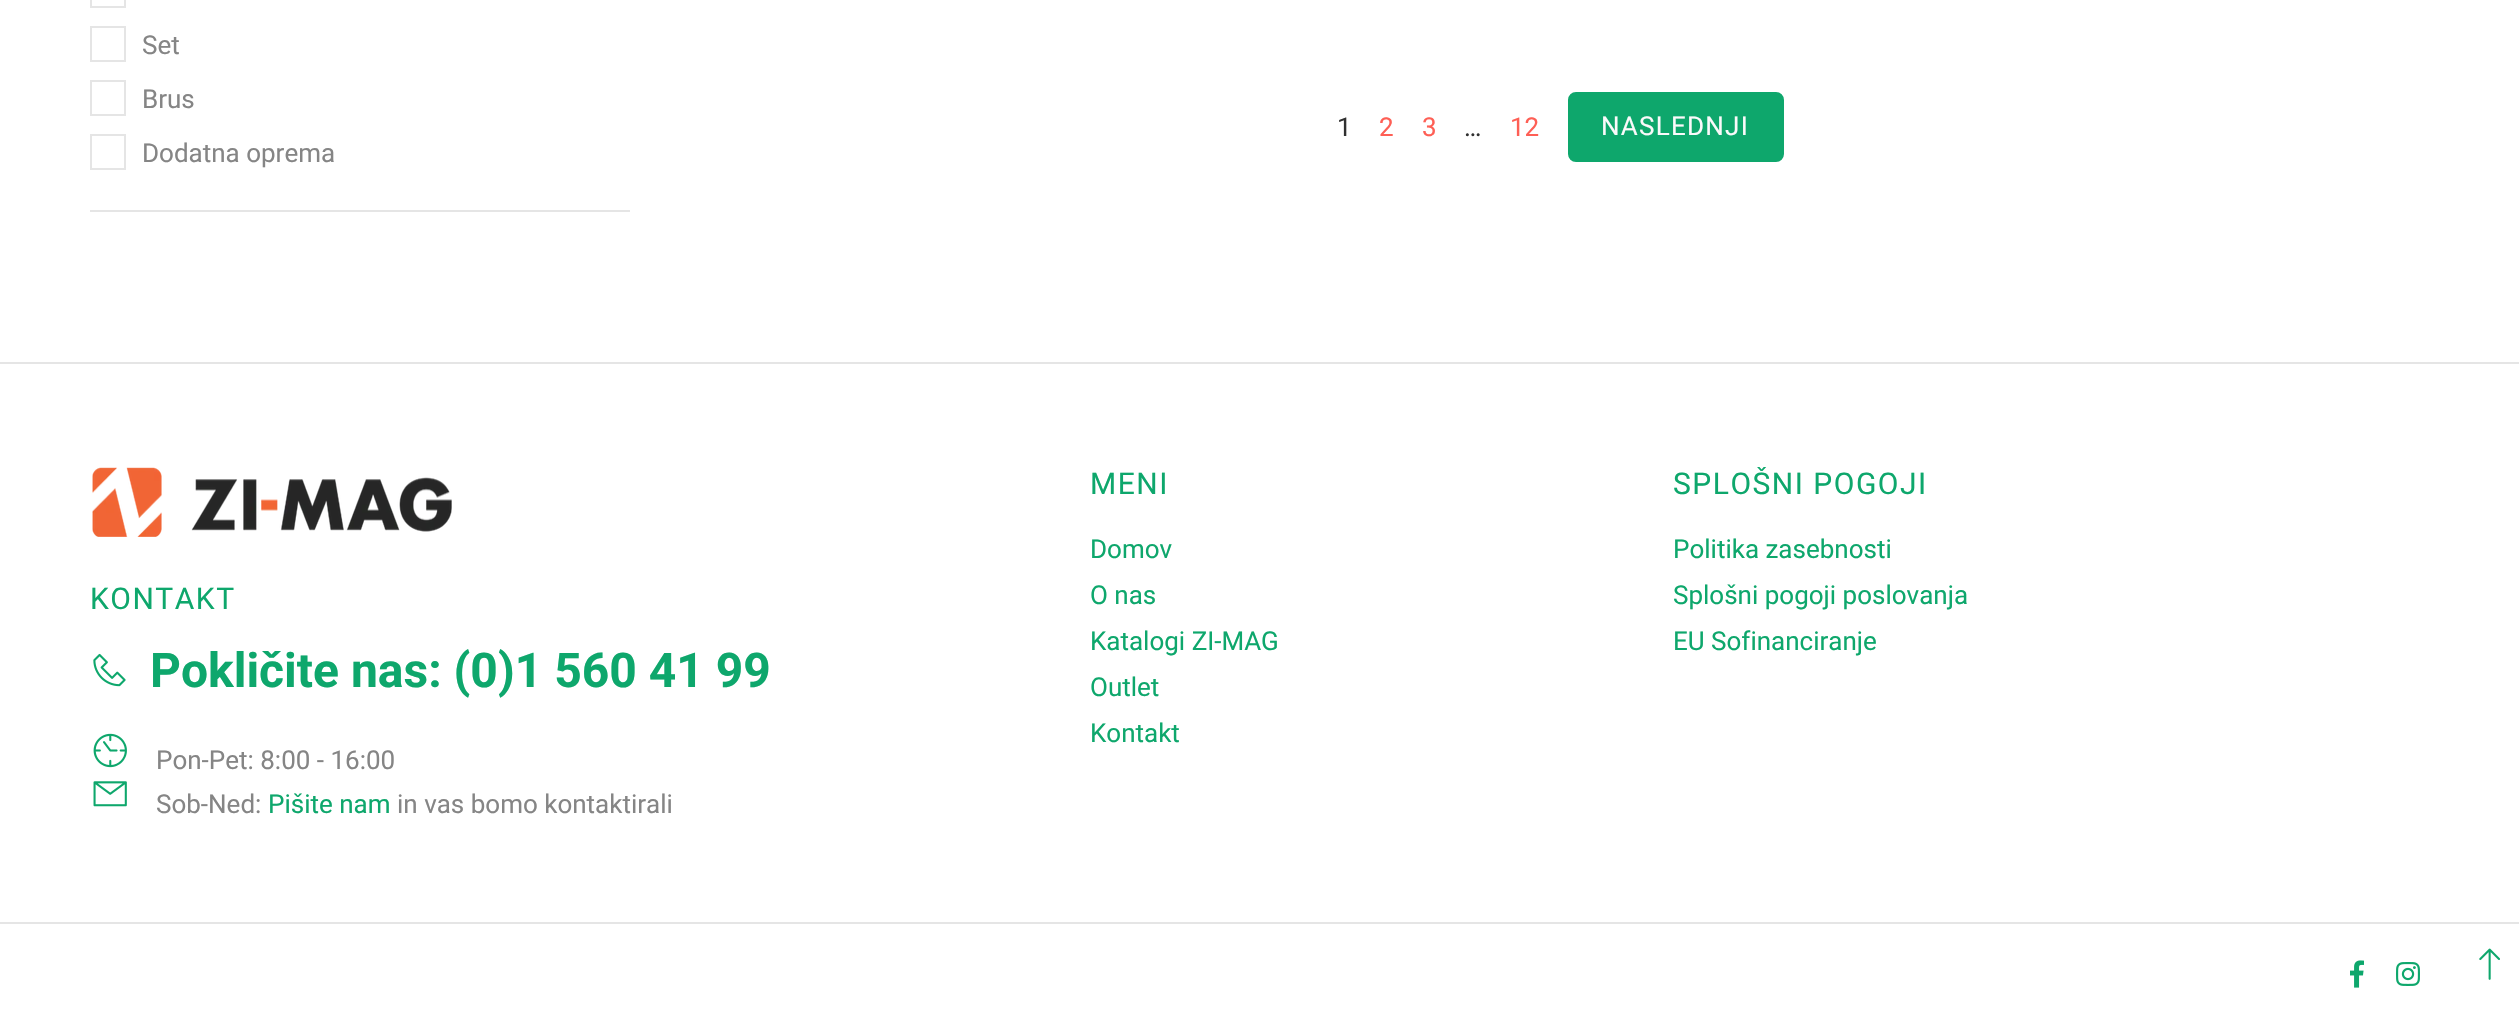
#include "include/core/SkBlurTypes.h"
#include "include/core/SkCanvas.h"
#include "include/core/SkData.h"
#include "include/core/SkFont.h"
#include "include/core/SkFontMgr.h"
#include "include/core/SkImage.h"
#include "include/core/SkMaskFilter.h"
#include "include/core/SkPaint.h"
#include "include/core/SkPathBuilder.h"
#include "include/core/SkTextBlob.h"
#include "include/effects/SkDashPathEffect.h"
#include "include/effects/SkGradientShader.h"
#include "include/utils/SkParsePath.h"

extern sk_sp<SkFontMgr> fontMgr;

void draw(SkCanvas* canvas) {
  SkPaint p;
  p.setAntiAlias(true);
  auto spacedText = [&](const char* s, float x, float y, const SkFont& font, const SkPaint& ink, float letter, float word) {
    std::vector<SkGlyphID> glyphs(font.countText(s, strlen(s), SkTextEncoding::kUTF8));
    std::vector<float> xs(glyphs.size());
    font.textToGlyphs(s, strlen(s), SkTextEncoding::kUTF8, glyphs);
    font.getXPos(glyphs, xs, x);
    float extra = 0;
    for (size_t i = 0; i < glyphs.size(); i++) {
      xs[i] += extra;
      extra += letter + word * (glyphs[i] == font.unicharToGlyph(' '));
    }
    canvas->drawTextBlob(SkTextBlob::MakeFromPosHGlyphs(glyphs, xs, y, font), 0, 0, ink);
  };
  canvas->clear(SK_ColorWHITE);
  p.setColor(SkColorSetRGB(229, 229, 229));
  canvas->drawRect(SkRect::MakeLTRB(90, 210, 630, 212), p);
  p.setStyle(SkPaint::kStroke_Style);
  p.setStrokeWidth(2);
  canvas->drawRect(SkRect::MakeLTRB(91, -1, 125, 7), p);
  canvas->drawRect(SkRect::MakeLTRB(91, 27, 125, 61), p);
  canvas->drawRect(SkRect::MakeLTRB(91, 81, 125, 115), p);
  canvas->drawRect(SkRect::MakeLTRB(91, 135, 125, 169), p);
  p.setStyle(SkPaint::kFill_Style);
  p.setColor(SkColorSetRGB(14, 167, 108));
  canvas->drawRoundRect(SkRect::MakeLTRB(1569, 93, 1783, 161), 7, 7, p);
  p.setStyle(SkPaint::kStroke_Style);
  canvas->drawRoundRect(SkRect::MakeLTRB(1569, 93, 1783, 161), 7, 7, p);
  p.setStyle(SkPaint::kFill_Style);
  p.setColor(SkColorSetRGB(229, 229, 229));
  canvas->drawRect(SkRect::MakeLTRB(0, 362, 2519, 364), p);
  canvas->drawImageRect(SkImages::DeferredFromEncodedData(SkData::MakeFromFileName("images/1.png")), SkRect::MakeLTRB(92, 467, 452, 537), SkSamplingOptions());
  canvas->drawImageRect(SkImages::DeferredFromEncodedData(SkData::MakeFromFileName("images/2.png")), SkRect::MakeLTRB(93, 653, 126, 687), SkSamplingOptions());
  canvas->drawImageRect(SkImages::DeferredFromEncodedData(SkData::MakeFromFileName("images/3.png")), SkRect::MakeLTRB(93, 733, 127, 768), SkSamplingOptions());
  canvas->drawImageRect(SkImages::DeferredFromEncodedData(SkData::MakeFromFileName("images/4.png")), SkRect::MakeLTRB(93, 781, 127, 807), SkSamplingOptions());
  canvas->drawRect(SkRect::MakeLTRB(0, 922, 2519, 924), p);
  canvas->drawImageRect(SkImages::DeferredFromEncodedData(SkData::MakeFromFileName("images/5.png")), SkRect::MakeLTRB(2350, 960, 2364, 988), SkSamplingOptions());
  canvas->drawImageRect(SkImages::DeferredFromEncodedData(SkData::MakeFromFileName("images/6.png")), SkRect::MakeLTRB(2396, 962, 2420, 986), SkSamplingOptions());
  canvas->drawImageRect(SkImages::DeferredFromEncodedData(SkData::MakeFromFileName("images/7.png")), SkRect::MakeLTRB(2479, 948, 2500, 980), SkSamplingOptions());
  SkFont font1(fontMgr->matchFamilyStyle("Roboto", SkFontStyle::Normal()), 26);
  font1.setSubpixel(true);
  p.setColor(SkColorSetRGB(133, 133, 133));
  canvas->drawString("Set", 142, 54, font1, p);
  canvas->drawString("Brus", 142, 108, font1, p);
  canvas->drawString("Dodatna oprema", 142, 162, font1, p);
  p.setColor(SkColorSetRGB(48, 48, 48));
  canvas->drawString("1", 1337, 136, font1, p);
  p.setColor(SkColorSetRGB(254, 95, 85));
  canvas->drawString("2", 1379, 136, font1, p);
  canvas->drawString("3", 1422, 136, font1, p);
  p.setColor(SkColorSetRGB(48, 48, 48));
  canvas->drawString("…", 1464, 136, font1, p);
  p.setColor(SkColorSetRGB(254, 95, 85));
  canvas->drawString("12", 1510, 136, font1, p);
  p.setColor(SkColorSetRGB(250, 250, 250));
  spacedText("NASLEDNJI", 1601, 135, font1, p, 1.25f, 0);
  SkFont font2(fontMgr->matchFamilyStyle("Roboto", SkFontStyle::Normal()), 30);
  font2.setSubpixel(true);
  p.setColor(SkColorSetRGB(14, 167, 108));
  spacedText("KONTAKT", 90, 609, font2, p, 1.5f, 0);
  SkFont font3(fontMgr->matchFamilyStyle("Roboto", SkFontStyle::Bold()), 48);
  font3.setSubpixel(true);
  canvas->drawString("Pokličite nas: (0)1 560 41 99", 150, 687, font3, p);
  p.setColor(SkColorSetRGB(133, 133, 133));
  canvas->drawString("Pon-Pet: 8:00 - 16:00", 156, 769, font1, p);
  canvas->drawString("Sob-Ned:", 156, 813, font1, p);
  p.setColor(SkColorSetRGB(14, 167, 108));
  canvas->drawString("Pišite nam", 268, 813, font1, p);
  p.setColor(SkColorSetRGB(133, 133, 133));
  canvas->drawString("in vas bomo kontaktirali", 397, 813, font1, p);
  p.setColor(SkColorSetRGB(14, 167, 108));
  spacedText("MENI", 1090, 494, font2, p, 1.5f, 0);
  canvas->drawString("Domov", 1090, 558, font1, p);
  canvas->drawString("O nas", 1090, 604, font1, p);
  canvas->drawString("Katalogi ZI-MAG", 1090, 650, font1, p);
  canvas->drawString("Outlet", 1090, 696, font1, p);
  canvas->drawString("Kontakt", 1090, 742, font1, p);
  spacedText("SPLOŠNI POGOJI", 1673, 494, font2, p, 1.5f, 0);
  canvas->drawString("Politika zasebnosti", 1673, 558, font1, p);
  canvas->drawString("Splošni pogoji poslovanja", 1673, 604, font1, p);
  canvas->drawString("EU Sofinanciranje", 1673, 650, font1, p);
}
